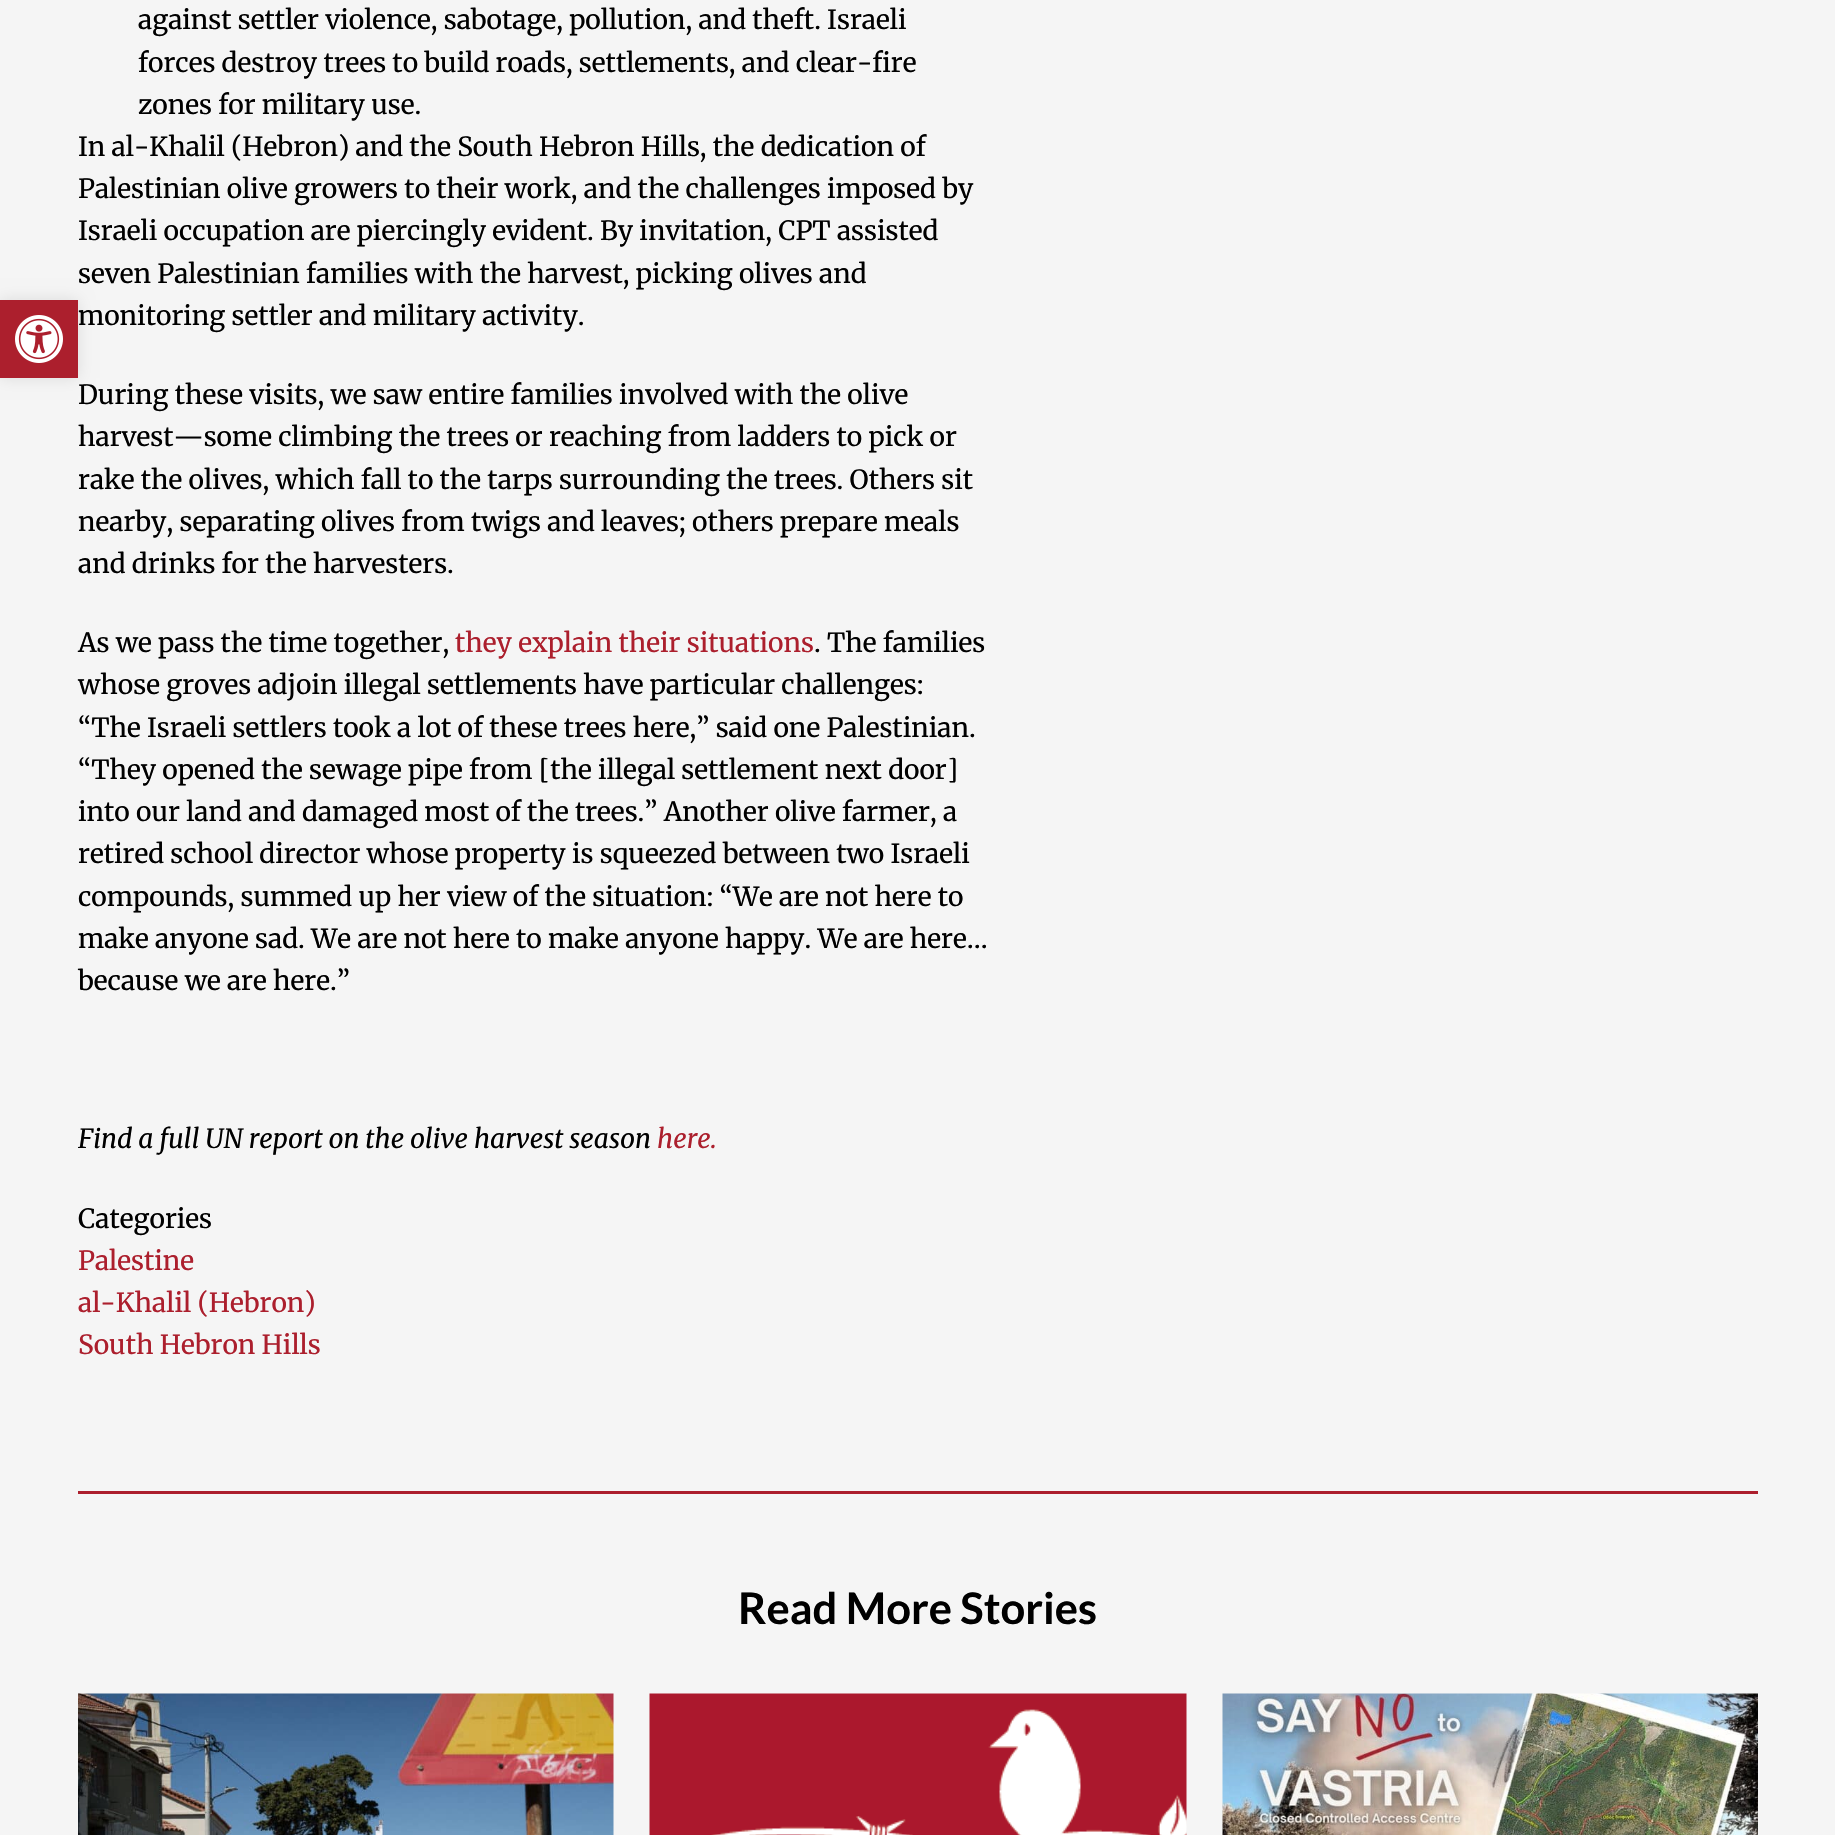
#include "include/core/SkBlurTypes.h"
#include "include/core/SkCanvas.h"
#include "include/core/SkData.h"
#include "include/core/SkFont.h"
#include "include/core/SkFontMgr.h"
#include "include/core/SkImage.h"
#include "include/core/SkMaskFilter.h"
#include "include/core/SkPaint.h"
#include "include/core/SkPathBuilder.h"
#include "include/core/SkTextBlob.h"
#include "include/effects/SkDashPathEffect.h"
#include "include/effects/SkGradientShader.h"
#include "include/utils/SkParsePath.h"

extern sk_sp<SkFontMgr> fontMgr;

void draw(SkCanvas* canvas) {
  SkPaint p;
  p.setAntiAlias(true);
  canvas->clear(SkColorSetRGB(245, 245, 245));
  p.setColor(SkColorSetARGB(26, 0, 0, 0));
  p.setMaskFilter(SkMaskFilter::MakeBlur(kNormal_SkBlurStyle, 7.5f));
  canvas->drawRect(SkRect::MakeLTRB(0, 300, 78, 378), p);
  p.setMaskFilter(nullptr);
  p.setColor(SkColorSetRGB(172, 31, 45));
  canvas->drawRect(SkRect::MakeLTRB(0, 300, 78, 378), p);
  canvas->drawImageRect(SkImages::DeferredFromEncodedData(SkData::MakeFromFileName("images/1.png")), SkRect::MakeLTRB(15, 315, 63, 363), SkSamplingOptions());
  canvas->drawRect(SkRect::MakeLTRB(78, 1491, 1758, 1494), p);
  canvas->drawImageRect(SkImages::DeferredFromEncodedData(SkData::MakeFromFileName("images/2.png")), SkRect::MakeLTRB(78, 1693, 614, 1835), SkSamplingOptions());
  canvas->drawImageRect(SkImages::DeferredFromEncodedData(SkData::MakeFromFileName("images/3.png")), SkRect::MakeLTRB(649, 1693, 1187, 1835), SkSamplingOptions());
  canvas->drawImageRect(SkImages::DeferredFromEncodedData(SkData::MakeFromFileName("images/4.png")), SkRect::MakeLTRB(1222, 1693, 1758, 1835), SkSamplingOptions());
  SkFont font1(fontMgr->matchFamilyStyle("Merriweather", SkFontStyle::Normal()), 26.4f);
  font1.setSubpixel(true);
  p.setColor(SK_ColorBLACK);
  canvas->drawString("against settler violence, sabotage, pollution, and theft. Israeli", 138, 29, font1, p);
  canvas->drawString("forces destroy trees to build roads, settlements, and clear-fire", 138, 72, font1, p);
  canvas->drawString("zones for military use.", 138, 114, font1, p);
  canvas->drawString("In al-Khalil (Hebron) and the South Hebron Hills, the dedication of", 78, 156, font1, p);
  canvas->drawString("Palestinian olive growers to their work, and the challenges imposed by", 78, 198, font1, p);
  canvas->drawString("Israeli occupation are piercingly evident. By invitation, CPT assisted", 78, 240, font1, p);
  canvas->drawString("seven Palestinian families with the harvest, picking olives and", 78, 283, font1, p);
  canvas->drawString("monitoring settler and military activity.", 78, 325, font1, p);
  canvas->drawString("During these visits, we saw entire families involved with the olive", 78, 404, font1, p);
  canvas->drawString("harvest—some climbing the trees or reaching from ladders to pick or", 78, 446, font1, p);
  canvas->drawString("rake the olives, which fall to the tarps surrounding the trees. Others sit", 78, 489, font1, p);
  canvas->drawString("nearby, separating olives from twigs and leaves; others prepare meals", 78, 531, font1, p);
  canvas->drawString("and drinks for the harvesters.", 78, 573, font1, p);
  canvas->drawString("As we pass the time together,", 78, 652, font1, p);
  p.setColor(SkColorSetRGB(172, 31, 45));
  canvas->drawString("they explain their situations", 455, 652, font1, p);
  p.setColor(SK_ColorBLACK);
  canvas->drawString(". The families", 814, 652, font1, p);
  canvas->drawString("whose groves adjoin illegal settlements have particular challenges:", 78, 694, font1, p);
  canvas->drawString("“The Israeli settlers took a lot of these trees here,” said one Palestinian.", 78, 737, font1, p);
  canvas->drawString("“They opened the sewage pipe from [the illegal settlement next door]", 78, 779, font1, p);
  canvas->drawString("into our land and damaged most of the trees.” Another olive farmer, a", 78, 821, font1, p);
  canvas->drawString("retired school director whose property is squeezed between two Israeli", 78, 863, font1, p);
  canvas->drawString("compounds, summed up her view of the situation: “We are not here to", 78, 906, font1, p);
  canvas->drawString("make anyone sad. We are not here to make anyone happy. We are here…", 78, 948, font1, p);
  canvas->drawString("because we are here.”", 78, 990, font1, p);
  SkFont font2(fontMgr->matchFamilyStyle("Merriweather", SkFontStyle::Italic()), 26.4f);
  font2.setSubpixel(true);
  canvas->drawString("Find a full UN report on the olive harvest season", 78, 1148, font2, p);
  p.setColor(SkColorSetRGB(172, 31, 45));
  canvas->drawString("here.", 657, 1148, font2, p);
  p.setColor(SK_ColorBLACK);
  canvas->drawString("Categories", 78, 1228, font1, p);
  p.setColor(SkColorSetRGB(172, 31, 45));
  canvas->drawString("Palestine", 78, 1270, font1, p);
  canvas->drawString("al-Khalil (Hebron)", 78, 1312, font1, p);
  canvas->drawString("South Hebron Hills", 78, 1354, font1, p);
  SkFont font3(fontMgr->matchFamilyStyle("Lato", SkFontStyle::Bold()), 43.5f);
  font3.setSubpixel(true);
  p.setColor(SK_ColorBLACK);
  canvas->drawString("Read More Stories", 738, 1624, font3, p);
}
